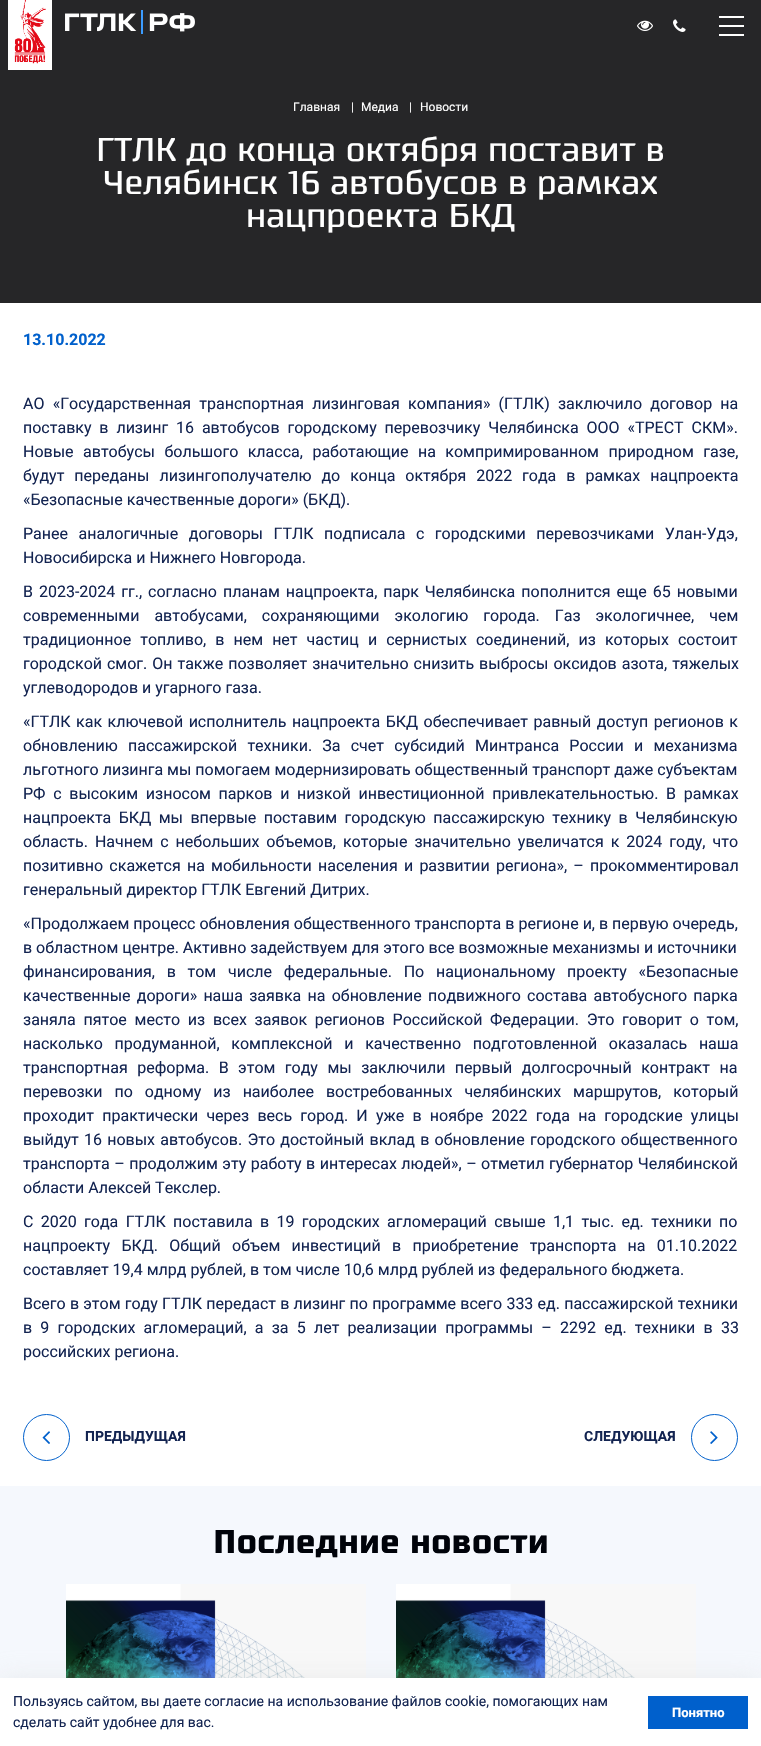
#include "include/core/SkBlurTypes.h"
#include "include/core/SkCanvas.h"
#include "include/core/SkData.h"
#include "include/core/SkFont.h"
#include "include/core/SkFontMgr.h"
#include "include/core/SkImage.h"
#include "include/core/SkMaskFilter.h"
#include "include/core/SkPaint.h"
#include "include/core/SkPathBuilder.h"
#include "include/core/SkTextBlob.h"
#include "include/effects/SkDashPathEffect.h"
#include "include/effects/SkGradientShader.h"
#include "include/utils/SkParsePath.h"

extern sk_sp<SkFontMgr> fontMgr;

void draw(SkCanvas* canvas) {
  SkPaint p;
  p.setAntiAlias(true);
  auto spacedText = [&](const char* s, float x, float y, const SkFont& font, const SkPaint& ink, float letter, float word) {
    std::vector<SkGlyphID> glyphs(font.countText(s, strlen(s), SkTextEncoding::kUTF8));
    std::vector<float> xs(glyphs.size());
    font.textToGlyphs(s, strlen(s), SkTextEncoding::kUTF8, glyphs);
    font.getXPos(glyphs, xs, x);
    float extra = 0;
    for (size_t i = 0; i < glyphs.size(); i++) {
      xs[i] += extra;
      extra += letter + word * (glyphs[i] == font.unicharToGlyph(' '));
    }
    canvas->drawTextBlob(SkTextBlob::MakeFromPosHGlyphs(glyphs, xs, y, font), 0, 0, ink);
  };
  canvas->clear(SK_ColorWHITE);
  p.setColor(SkColorSetRGB(38, 38, 40));
  canvas->drawRect(SkRect::MakeLTRB(0, 0, 761, 303), p);
  p.setColor(SK_ColorWHITE);
  canvas->drawRect(SkRect::MakeLTRB(8, 0, 52, 70), p);
  canvas->drawImageRect(SkImages::DeferredFromEncodedData(SkData::MakeFromFileName("images/1.png")), SkRect::MakeLTRB(14, 0, 46, 64), SkSamplingOptions());
  canvas->drawImageRect(SkImages::DeferredFromEncodedData(SkData::MakeFromFileName("images/2.png")), SkRect::MakeLTRB(65, 10, 195, 34), SkSamplingOptions());
  canvas->drawImageRect(SkImages::DeferredFromEncodedData(SkData::MakeFromFileName("images/3.png")), SkRect::MakeLTRB(637, 20, 653, 31), SkSamplingOptions());
  canvas->drawImageRect(SkImages::DeferredFromEncodedData(SkData::MakeFromFileName("images/4.png")), SkRect::MakeLTRB(673, 19, 686, 32), SkSamplingOptions());
  canvas->drawRect(SkRect::MakeLTRB(719, 16, 744, 18), p);
  canvas->drawRect(SkRect::MakeLTRB(719, 34, 744, 36), p);
  canvas->drawRect(SkRect::MakeLTRB(719, 25, 744, 27), p);
  p.setStyle(SkPaint::kStroke_Style);
  p.setStrokeWidth(1);
  p.setColor(SkColorSetRGB(0, 96, 204));
  canvas->drawCircle(46.5f, 1437.5f, 23, p);
  canvas->drawImageRect(SkImages::DeferredFromEncodedData(SkData::MakeFromFileName("images/5.png")), SkRect::MakeLTRB(42, 1431, 50, 1444), SkSamplingOptions());
  canvas->drawCircle(714.5f, 1437.5f, 23, p);
  canvas->drawImageRect(SkImages::DeferredFromEncodedData(SkData::MakeFromFileName("images/6.png")), SkRect::MakeLTRB(710, 1431, 718, 1444), SkSamplingOptions());
  p.setStyle(SkPaint::kFill_Style);
  p.setColor(SkColorSetRGB(245, 248, 253));
  canvas->drawRect(SkRect::MakeLTRB(0, 1486, 761, 1678), p);
  canvas->drawImageRect(SkImages::DeferredFromEncodedData(SkData::MakeFromFileName("images/7.png")), SkRect::MakeLTRB(66, 1584, 366, 1678), SkSamplingOptions());
  canvas->drawImageRect(SkImages::DeferredFromEncodedData(SkData::MakeFromFileName("images/8.png")), SkRect::MakeLTRB(396, 1584, 696, 1678), SkSamplingOptions());
  p.setColor(SkColorSetARGB(102, 207, 207, 207));
  p.setMaskFilter(SkMaskFilter::MakeBlur(kNormal_SkBlurStyle, 15));
  canvas->drawRect(SkRect::MakeLTRB(-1, 1681, 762, 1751), p);
  p.setMaskFilter(nullptr);
  p.setColor(SK_ColorWHITE);
  canvas->drawRect(SkRect::MakeLTRB(0, 1678, 761, 1746), p);
  p.setColor(SkColorSetRGB(0, 96, 204));
  canvas->drawRect(SkRect::MakeLTRB(648, 1696, 748, 1729), p);
  SkFont font1(fontMgr->matchFamilyStyle("Roboto", SkFontStyle::Normal()), 12);
  font1.setSubpixel(true);
  p.setColor(SK_ColorWHITE);
  canvas->drawString("Главная", 293, 111, font1, p);
  canvas->drawString("|", 351, 111, font1, p);
  canvas->drawString("Медиа", 361, 111, font1, p);
  canvas->drawString("|", 409, 111, font1, p);
  canvas->drawString("Новости", 420, 111, font1, p);
  SkFont font2(fontMgr->matchFamilyStyle("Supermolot", SkFontStyle::Normal()), 33);
  font2.setSubpixel(true);
  canvas->drawString("ГТЛК до конца октября поставит в", 96, 161, font2, p);
  canvas->drawString("Челябинск 16 автобусов в рамках", 103, 194, font2, p);
  canvas->drawString("нацпроекта БКД", 246, 227, font2, p);
  SkFont font3(fontMgr->matchFamilyStyle("Roboto", SkFontStyle::Bold()), 16);
  font3.setSubpixel(true);
  p.setColor(SkColorSetRGB(0, 96, 204));
  canvas->drawString("13.10.2022", 23, 345, font3, p);
  SkFont font4(fontMgr->matchFamilyStyle("Roboto", SkFontStyle::Normal()), 16);
  font4.setSubpixel(true);
  p.setColor(SkColorSetRGB(19, 36, 81));
  spacedText("АО «Государственная транспортная лизинговая компания» (ГТЛК) заключило договор на", 23, 409, font4, p, 0, 4.25f);
  spacedText("поставку в лизинг 16 автобусов городскому перевозчику Челябинска ООО «ТРЕСТ СКМ».", 23, 433, font4, p, 0, 3.9f);
  spacedText("Новые автобусы большого класса, работающие на компримированном природном газе,", 23, 457, font4, p, 0, 5.5f);
  spacedText("будут переданы лизингополучателю до конца октября 2022 года в рамках нацпроекта", 23, 481, font4, p, 0, 6);
  canvas->drawString("«Безопасные качественные дороги» (БКД).", 23, 505, font4, p);
  spacedText("Ранее аналогичные договоры ГТЛК подписала с городскими перевозчиками Улан-Удэ,", 23, 539, font4, p, 0, 6.5f);
  canvas->drawString("Новосибирска и Нижнего Новгорода.", 23, 563, font4, p);
  spacedText("В 2023-2024 гг., согласно планам нацпроекта, парк Челябинска пополнится еще 65 новыми", 23, 597, font4, p, 0, 2);
  spacedText("современными автобусами, сохраняющими экологию города. Газ экологичнее, чем", 23, 621, font4, p, 0, 11);
  spacedText("традиционное топливо, в нем нет частиц и сернистых соединений, из которых состоит", 23, 645, font4, p, 0, 5.1f);
  spacedText("городской смог. Он также позволяет значительно снизить выбросы оксидов азота, тяжелых", 23, 669, font4, p, 0, 1);
  canvas->drawString("углеводородов и угарного газа.", 23, 693, font4, p);
  spacedText("«ГТЛК как ключевой исполнитель нацпроекта БКД обеспечивает равный доступ регионов к", 23, 727, font4, p, 0, 1.5f);
  spacedText("обновлению пассажирской техники. За счет субсидий Минтранса России и механизма", 23, 751, font4, p, 0, 6.25f);
  canvas->drawString("льготного лизинга мы помогаем модернизировать общественный транспорт даже субъектам", 23, 775, font4, p);
  spacedText("РФ с высоким износом парков и низкой инвестиционной привлекательностью. В рамках", 23, 799, font4, p, 0, 3.75f);
  spacedText("нацпроекта БКД мы впервые поставим городскую пассажирскую технику в Челябинскую", 23, 823, font4, p, 0, 3.5f);
  spacedText("область. Начнем с небольших объемов, которые значительно увеличатся к 2024 году, что", 23, 847, font4, p, 0, 3);
  spacedText("позитивно скажется на мобильности населения и развитии региона», – прокомментировал", 23, 871, font4, p, 0, 2.25f);
  canvas->drawString("генеральный директор ГТЛК Евгений Дитрих.", 23, 895, font4, p);
  canvas->drawString("«Продолжаем процесс обновления общественного транспорта в регионе и, в первую очередь,", 23, 929, font4, p);
  canvas->drawString("в областном центре. Активно задействуем для этого все возможные механизмы и источники", 23, 953, font4, p);
  spacedText("финансирования, в том числе федеральные. По национальному проекту «Безопасные", 23, 977, font4, p, 0, 7.75f);
  spacedText("качественные дороги» наша заявка на обновление подвижного состава автобусного парка", 23, 1001, font4, p, 0, 2.25f);
  spacedText("заняла пятое место из всех заявок регионов Российской Федерации. Это говорит о том,", 23, 1025, font4, p, 0, 3.75f);
  spacedText("насколько продуманной, комплексной и качественно подготовленной оказалась наша", 23, 1049, font4, p, 0, 7.75f);
  spacedText("транспортная реформа. В этом году мы заключили первый долгосрочный контракт на", 23, 1073, font4, p, 0, 5.5f);
  spacedText("перевозки по одному из наиболее востребованных челябинских маршрутов, который", 23, 1097, font4, p, 0, 8);
  spacedText("проходит практически через весь город. И уже в ноябре 2022 года на городские улицы", 23, 1121, font4, p, 0, 4.25f);
  spacedText("выйдут 16 новых автобусов. Это достойный вклад в обновление городского общественного", 23, 1145, font4, p, 0, 1.25f);
  spacedText("транспорта – продолжим эту работу в интересах людей», – отметил губернатор Челябинской", 23, 1169, font4, p, 0, 0.5f);
  canvas->drawString("области Алексей Текслер.", 23, 1193, font4, p);
  spacedText("С 2020 года ГТЛК поставила в 19 городских агломераций свыше 1,1 тыс. ед. техники по", 23, 1227, font4, p, 0, 3.4f);
  spacedText("нацпроекту БКД. Общий объем инвестиций в приобретение транспорта на 01.10.2022", 23, 1251, font4, p, 0, 7.25f);
  canvas->drawString("составляет 19,4 млрд рублей, в том числе 10,6 млрд рублей из федерального бюджета.", 23, 1275, font4, p);
  spacedText("Всего в этом году ГТЛК передаст в лизинг по программе всего 333 ед. пассажирской техники", 23, 1309, font4, p, 0, 0.25f);
  spacedText("в 9 городских агломераций, а за 5 лет реализации программы – 2292 ед. техники в 33", 23, 1333, font4, p, 0, 4.25f);
  canvas->drawString("российских региона.", 23, 1357, font4, p);
  SkFont font5(fontMgr->matchFamilyStyle("Roboto", SkFontStyle::Bold()), 14);
  font5.setSubpixel(true);
  canvas->drawString("ПРЕДЫДУЩАЯ", 85, 1441, font5, p);
  canvas->drawString("СЛЕДУЮЩАЯ", 584, 1441, font5, p);
  SkFont font6(fontMgr->matchFamilyStyle("Supermolot", SkFontStyle::Bold()), 33);
  font6.setSubpixel(true);
  p.setColor(SkColorSetRGB(0, 3, 10));
  canvas->drawString("Последние новости", 213, 1553, font6, p);
  SkFont font7(fontMgr->matchFamilyStyle("Roboto", SkFontStyle::Normal()), 14);
  font7.setSubpixel(true);
  p.setColor(SkColorSetRGB(19, 36, 81));
  canvas->drawString("Пользуясь сайтом, вы даете согласие на использование файлов cookie, помогающих нам", 13, 1706, font7, p);
  canvas->drawString("сделать сайт удобнее для вас.", 13, 1727, font7, p);
  SkFont font8(fontMgr->matchFamilyStyle("Roboto", SkFontStyle::Bold()), 13);
  font8.setSubpixel(true);
  p.setColor(SK_ColorWHITE);
  canvas->drawString("Понятно", 672, 1717, font8, p);
}
